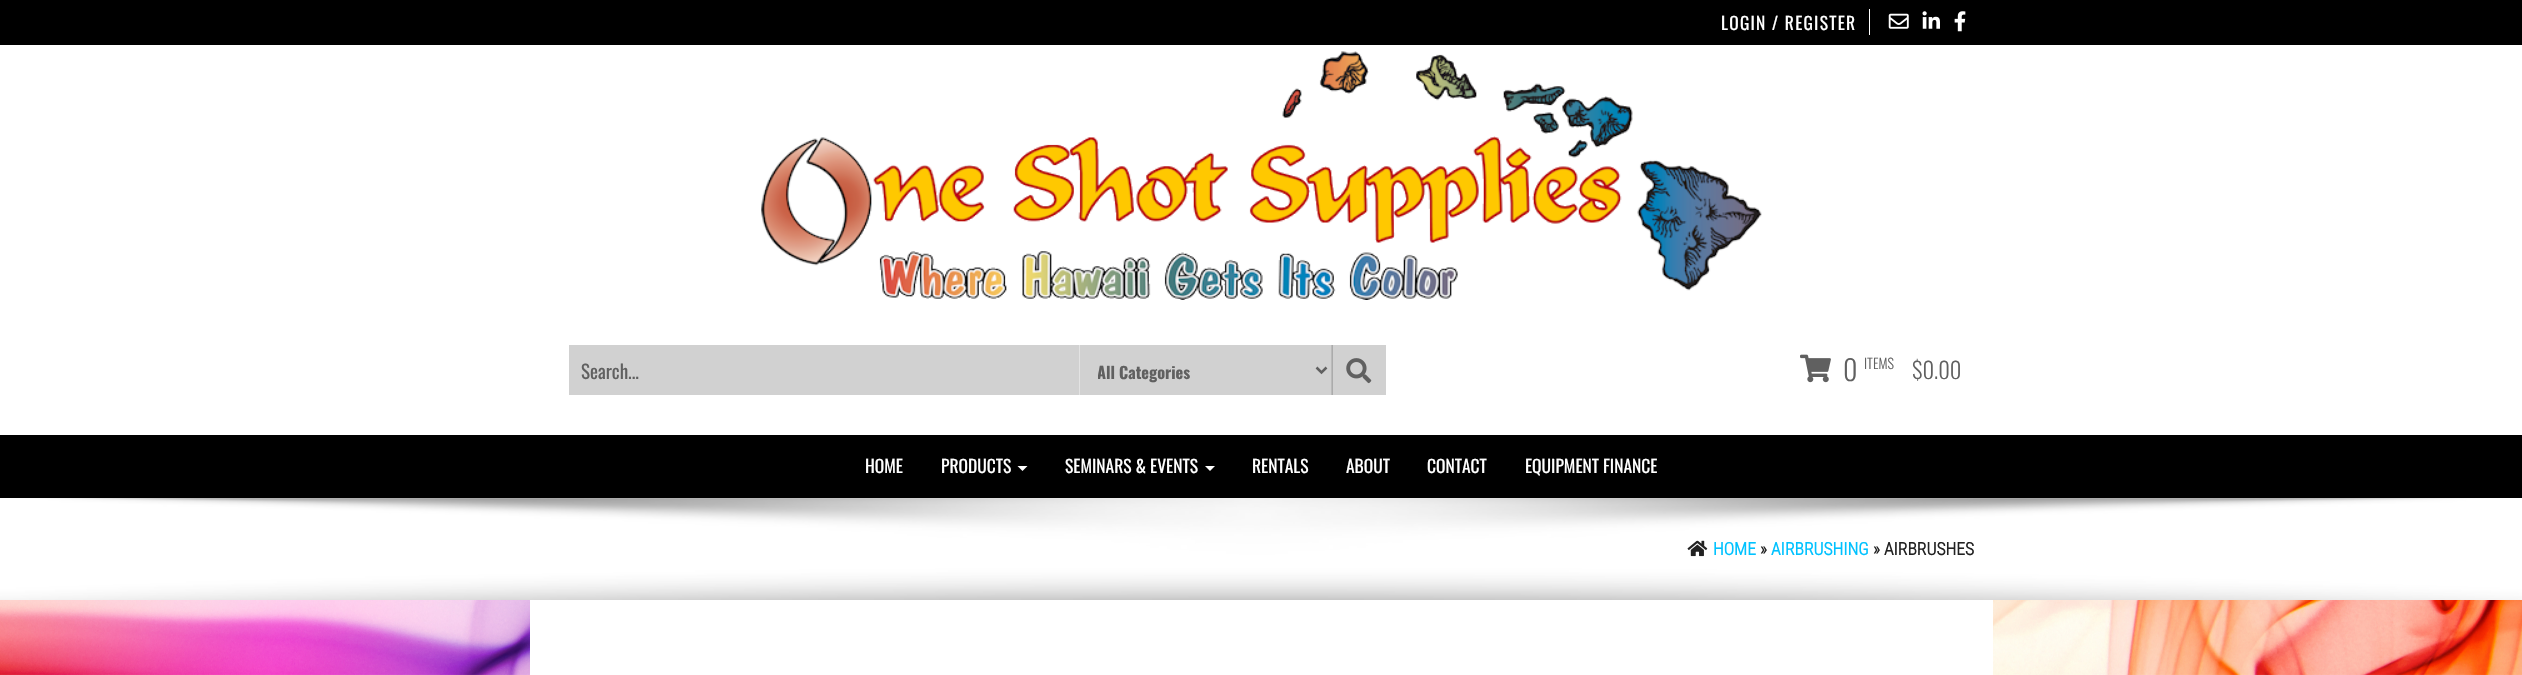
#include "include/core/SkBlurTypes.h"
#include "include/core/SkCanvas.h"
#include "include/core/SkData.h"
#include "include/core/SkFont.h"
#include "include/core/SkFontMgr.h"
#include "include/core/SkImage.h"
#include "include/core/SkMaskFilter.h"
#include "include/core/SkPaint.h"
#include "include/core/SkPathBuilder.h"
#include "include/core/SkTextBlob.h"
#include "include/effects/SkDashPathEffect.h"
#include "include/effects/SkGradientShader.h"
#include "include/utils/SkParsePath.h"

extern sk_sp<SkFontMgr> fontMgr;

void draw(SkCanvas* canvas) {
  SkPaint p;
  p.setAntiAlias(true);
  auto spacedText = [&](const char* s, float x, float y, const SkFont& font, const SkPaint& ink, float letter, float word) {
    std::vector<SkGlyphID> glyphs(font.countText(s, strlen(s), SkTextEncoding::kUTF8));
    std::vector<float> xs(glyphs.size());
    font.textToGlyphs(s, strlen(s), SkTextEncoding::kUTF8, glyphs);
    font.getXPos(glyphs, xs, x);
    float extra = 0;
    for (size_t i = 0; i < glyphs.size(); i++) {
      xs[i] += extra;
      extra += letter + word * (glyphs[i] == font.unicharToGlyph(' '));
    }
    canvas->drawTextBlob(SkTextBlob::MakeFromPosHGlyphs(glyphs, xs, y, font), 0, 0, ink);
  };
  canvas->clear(SK_ColorWHITE);
  canvas->drawImageRect(SkImages::DeferredFromEncodedData(SkData::MakeFromFileName("images/1.png")), SkRect::MakeLTRB(0, 600, 2522, 675), SkSamplingOptions());
  p.setColor(SK_ColorBLACK);
  canvas->drawRect(SkRect::MakeLTRB(0, 0, 2522, 45), p);
  p.setColor(SK_ColorWHITE);
  canvas->drawRect(SkRect::MakeLTRB(1869, 9, 1870, 35), p);
  canvas->drawImageRect(SkImages::DeferredFromEncodedData(SkData::MakeFromFileName("images/2.png")), SkRect::MakeLTRB(1888, 13, 1909, 29), SkSamplingOptions());
  canvas->drawImageRect(SkImages::DeferredFromEncodedData(SkData::MakeFromFileName("images/3.png")), SkRect::MakeLTRB(1922, 11, 1940, 29), SkSamplingOptions());
  canvas->drawImageRect(SkImages::DeferredFromEncodedData(SkData::MakeFromFileName("images/4.png")), SkRect::MakeLTRB(1954, 11, 1966, 32), SkSamplingOptions());
  canvas->drawImageRect(SkImages::DeferredFromEncodedData(SkData::MakeFromFileName("images/5.png")), SkRect::MakeLTRB(761, 51, 1762, 300), SkSamplingOptions());
  p.setColor(SkColorSetRGB(209, 209, 209));
  canvas->drawRect(SkRect::MakeLTRB(569, 345, 1079, 395), p);
  canvas->drawRect(SkRect::MakeLTRB(1080, 345, 1333, 395), p);
  p.setColor(SkColorSetRGB(227, 227, 227));
  canvas->drawRect(SkRect::MakeLTRB(1331, 345, 1332, 395), p);
  canvas->drawRect(SkRect::MakeLTRB(1079, 345, 1080, 395), p);
  p.setStyle(SkPaint::kStroke_Style);
  p.setStrokeWidth(2.5f);
  p.setColor(SkColorSetRGB(96, 96, 96));
  canvas->drawPath(SkPathBuilder().moveTo(1316.5f, 367.5f).lineTo(1321.5f, 372.5f).lineTo(1326.5f, 367.5f).detach(), p);
  p.setStyle(SkPaint::kFill_Style);
  p.setColor(SkColorSetARGB(46, 0, 0, 0));
  canvas->drawRect(SkRect::MakeLTRB(1331, 345, 1386, 395), p);
  canvas->drawImageRect(SkImages::DeferredFromEncodedData(SkData::MakeFromFileName("images/6.png")), SkRect::MakeLTRB(1346, 358, 1372, 384), SkSamplingOptions());
  canvas->drawImageRect(SkImages::DeferredFromEncodedData(SkData::MakeFromFileName("images/7.png")), SkRect::MakeLTRB(1800, 354, 1831, 383), SkSamplingOptions());
  p.setColor(SK_ColorBLACK);
  canvas->drawRect(SkRect::MakeLTRB(0, 435, 2522, 498), p);
  p.setColor(SK_ColorWHITE);
  canvas->drawPath(SkPathBuilder().moveTo(1017.5f, 466).lineTo(1027.5f, 466).lineTo(1022.5f, 471).close().detach(), p);
  canvas->drawPath(SkPathBuilder().moveTo(1205, 466).lineTo(1215, 466).lineTo(1210, 471).close().detach(), p);
  canvas->drawImageRect(SkImages::DeferredFromEncodedData(SkData::MakeFromFileName("images/8.png")), SkRect::MakeLTRB(0, 498, 2522, 600), SkSamplingOptions());
  canvas->drawImageRect(SkImages::DeferredFromEncodedData(SkData::MakeFromFileName("images/9.png")), SkRect::MakeLTRB(1687, 540, 1708, 557), SkSamplingOptions());
  canvas->drawRect(SkRect::MakeLTRB(530, 600, 1993, 675), p);
  SkFont font1(fontMgr->matchFamilyStyle("Oswald", SkFontStyle::Normal()), 17.5f);
  font1.setSubpixel(true);
  spacedText("LOGIN / REGISTER", 1721, 30, font1, p, 1.25f, 0);
  SkFont font2(fontMgr->matchFamilyStyle("Oswald", SkFontStyle::Normal()), 19);
  font2.setSubpixel(true);
  p.setColor(SkColorSetRGB(96, 96, 96));
  canvas->drawString("Search...", 581, 379, font2, p);
  canvas->save();
  canvas->clipRect(SkRect::MakeLTRB(1098, 358, 1299, 385));
  SkFont font3(fontMgr->matchFamilyStyle("Oswald", SkFontStyle::Bold()), 16.25f);
  font3.setSubpixel(true);
  canvas->drawString("All Categories", 1097, 379, font3, p);
  canvas->restore();
  SkFont font4(fontMgr->matchFamilyStyle("Oswald", SkFontStyle(300, SkFontStyle::kNormal_Width, SkFontStyle::kUpright_Slant)), 28);
  font4.setSubpixel(true);
  canvas->drawString("0", 1843, 381, font4, p);
  SkFont font5(fontMgr->matchFamilyStyle("Oswald", SkFontStyle(300, SkFontStyle::kNormal_Width, SkFontStyle::kUpright_Slant)), 14);
  font5.setSubpixel(true);
  canvas->drawString("ITEMS", 1864, 369, font5, p);
  SkFont font6(fontMgr->matchFamilyStyle("Oswald", SkFontStyle(300, SkFontStyle::kNormal_Width, SkFontStyle::kUpright_Slant)), 22.5f);
  font6.setSubpixel(true);
  canvas->drawString("$0.00", 1912, 379, font6, p);
  p.setColor(SK_ColorWHITE);
  canvas->drawString("HOME", 865, 473, font1, p);
  canvas->drawString("PRODUCTS", 941, 473, font1, p);
  canvas->drawString("SEMINARS & EVENTS", 1065, 473, font1, p);
  canvas->drawString("RENTALS", 1252, 473, font1, p);
  canvas->drawString("ABOUT", 1346, 473, font1, p);
  canvas->drawString("CONTACT", 1427, 473, font1, p);
  canvas->drawString("EQUIPMENT FINANCE", 1525, 473, font1, p);
  SkFont font7(fontMgr->matchFamilyStyle("Roboto Condensed", SkFontStyle::Bold()), 17.5f);
  font7.setSubpixel(true);
  p.setColor(SkColorSetRGB(0, 194, 255));
  canvas->drawString("HOME", 1713, 555, font7, p);
  p.setColor(SkColorSetRGB(34, 34, 34));
  canvas->drawString("»", 1760, 555, font7, p);
  p.setColor(SkColorSetRGB(0, 194, 255));
  canvas->drawString("AIRBRUSHING", 1771, 555, font7, p);
  p.setColor(SkColorSetRGB(34, 34, 34));
  canvas->drawString("» AIRBRUSHES", 1873, 555, font7, p);
}
